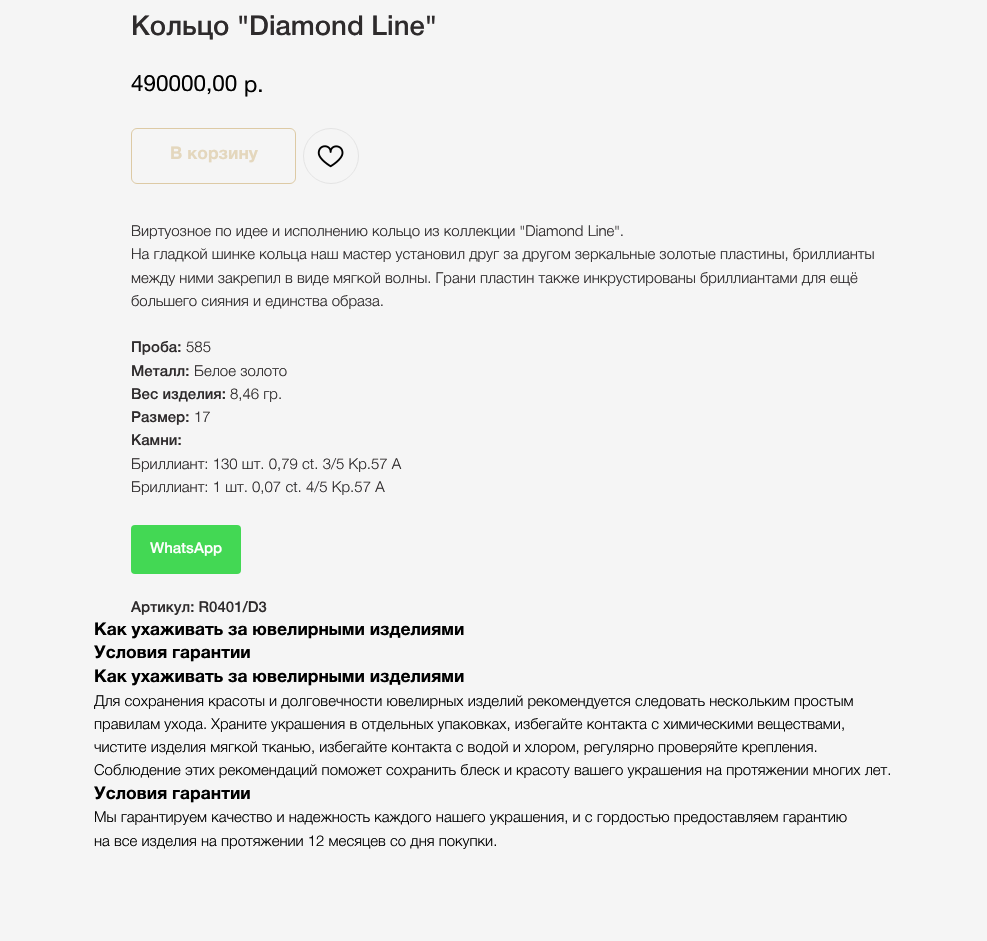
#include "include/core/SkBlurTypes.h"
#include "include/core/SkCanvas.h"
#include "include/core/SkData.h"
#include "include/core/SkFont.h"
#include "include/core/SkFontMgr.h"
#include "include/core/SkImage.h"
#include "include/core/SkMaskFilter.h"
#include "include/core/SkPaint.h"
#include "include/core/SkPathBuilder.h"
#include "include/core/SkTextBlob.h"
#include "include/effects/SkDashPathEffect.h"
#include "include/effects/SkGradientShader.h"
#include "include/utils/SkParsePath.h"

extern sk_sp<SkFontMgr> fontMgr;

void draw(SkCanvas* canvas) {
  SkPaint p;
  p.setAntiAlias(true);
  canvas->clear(SkColorSetRGB(245, 245, 245));
  p.setStyle(SkPaint::kStroke_Style);
  p.setStrokeWidth(1);
  p.setColor(SkColorSetRGB(221, 202, 165));
  canvas->drawRoundRect(SkRect::MakeLTRB(131.5f, 128.5f, 295.5f, 183.5f), 5.5f, 5.5f, p);
  p.setColor(SkColorSetRGB(228, 228, 228));
  canvas->drawCircle(331, 156, 27.5f, p);
  canvas->drawImageRect(SkImages::DeferredFromEncodedData(SkData::MakeFromFileName("images/1.png")), SkRect::MakeLTRB(317, 145, 344, 168), SkSamplingOptions());
  p.setStyle(SkPaint::kFill_Style);
  p.setColor(SkColorSetRGB(67, 216, 84));
  canvas->drawRoundRect(SkRect::MakeLTRB(131, 525, 241, 574), 4, 4, p);
  SkFont font1(fontMgr->matchFamilyStyle("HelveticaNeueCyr", SkFontStyle(500, SkFontStyle::kNormal_Width, SkFontStyle::kUpright_Slant)), 27.5f);
  font1.setSubpixel(true);
  p.setColor(SkColorSetRGB(46, 43, 44));
  canvas->drawString("Кольцо \"Diamond Line\"", 131, 35, font1, p);
  SkFont font2(fontMgr->matchFamilyStyle("HelveticaNeueCyr", SkFontStyle::Normal()), 22.5f);
  font2.setSubpixel(true);
  p.setColor(SK_ColorBLACK);
  canvas->drawString("490000,00", 131, 91, font2, p);
  canvas->drawString("р.", 244, 92, font2, p);
  SkFont font3(fontMgr->matchFamilyStyle("HelveticaNeueCyr", SkFontStyle::Bold()), 17.5f);
  font3.setSubpixel(true);
  p.setColor(SkColorSetRGB(228, 215, 189));
  canvas->drawString("В корзину", 170, 159, font3, p);
  SkFont font4(fontMgr->matchFamilyStyle("HelveticaNeueCyr", SkFontStyle(300, SkFontStyle::kNormal_Width, SkFontStyle::kUpright_Slant)), 15);
  font4.setSubpixel(true);
  p.setColor(SkColorSetRGB(46, 43, 44));
  canvas->drawString("Виртуозное по идее и исполнению кольцо из коллекции \"Diamond Line\".", 131, 236, font4, p);
  canvas->drawString("На гладкой шинке кольца наш мастер установил друг за другом зеркальные золотые пластины, бриллианты", 131, 259, font4, p);
  canvas->drawString("между ними закрепил в виде мягкой волны. Грани пластин также инкрустированы бриллиантами для ещё", 131, 283, font4, p);
  canvas->drawString("большего сияния и единства образа.", 131, 306, font4, p);
  SkFont font5(fontMgr->matchFamilyStyle("HelveticaNeueCyr", SkFontStyle(500, SkFontStyle::kNormal_Width, SkFontStyle::kUpright_Slant)), 15);
  font5.setSubpixel(true);
  canvas->drawString("Проба:", 131, 352, font5, p);
  canvas->drawString("585", 186, 352, font4, p);
  canvas->drawString("Металл:", 131, 376, font5, p);
  canvas->drawString("Белое золото", 194, 376, font4, p);
  canvas->drawString("Вес изделия:", 131, 399, font5, p);
  canvas->drawString("8,46 гр.", 230, 399, font4, p);
  canvas->drawString("Размер:", 131, 422, font5, p);
  canvas->drawString("17", 194, 422, font4, p);
  canvas->drawString("Камни:", 131, 445, font5, p);
  canvas->drawString("Бриллиант: 130 шт. 0,79 ct. 3/5 Kр.57 А", 131, 469, font4, p);
  canvas->drawString("Бриллиант: 1 шт. 0,07 ct. 4/5 Kр.57 А", 131, 492, font4, p);
  p.setColor(SK_ColorWHITE);
  canvas->drawString("WhatsApp", 150, 553, font5, p);
  p.setColor(SkColorSetRGB(46, 43, 44));
  canvas->drawString("Артикул: R0401/D3", 131, 612, font5, p);
  p.setColor(SK_ColorBLACK);
  canvas->drawString("Как ухаживать за ювелирными изделиями", 94, 635, font3, p);
  canvas->drawString("Условия гарантии", 94, 658, font3, p);
  canvas->drawString("Как ухаживать за ювелирными изделиями", 94, 682, font3, p);
  canvas->drawString("Для сохранения красоты и долговечности ювелирных изделий рекомендуется следовать нескольким простым", 94, 706, font4, p);
  canvas->drawString("правилам ухода. Храните украшения в отдельных упаковках, избегайте контакта с химическими веществами,", 94, 729, font4, p);
  canvas->drawString("чистите изделия мягкой тканью, избегайте контакта с водой и хлором, регулярно проверяйте крепления.", 94, 752, font4, p);
  canvas->drawString("Соблюдение этих рекомендаций поможет сохранить блеск и красоту вашего украшения на протяжении многих лет.", 94, 775, font4, p);
  canvas->drawString("Условия гарантии", 94, 799, font3, p);
  canvas->drawString("Мы гарантируем качество и надежность каждого нашего украшения, и с гордостью предоставляем гарантию", 94, 822, font4, p);
  canvas->drawString("на все изделия на протяжении 12 месяцев со дня покупки.", 94, 846, font4, p);
}
